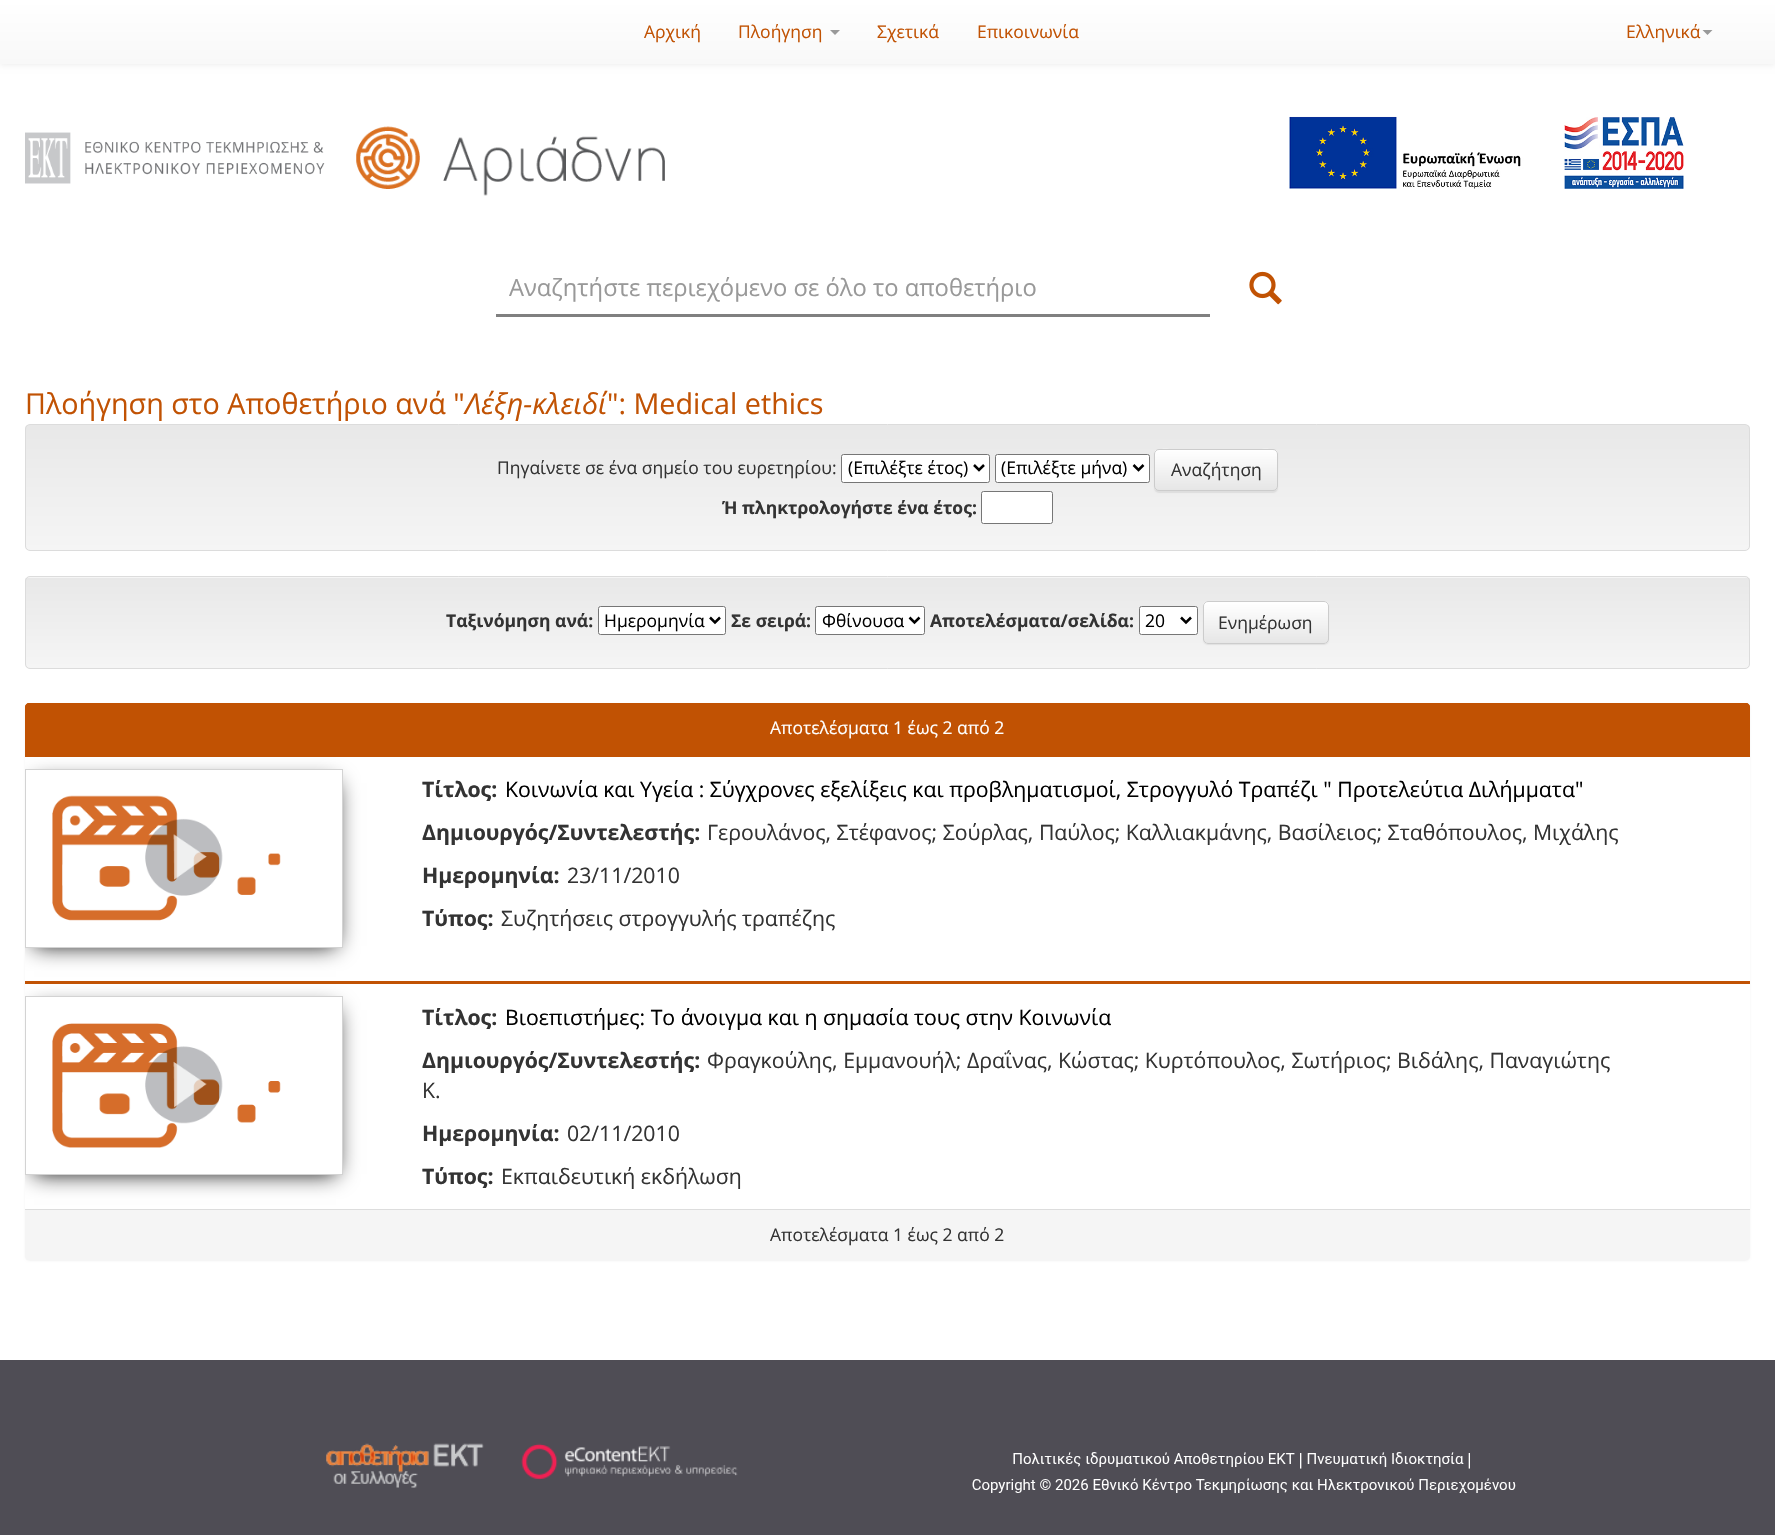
#include "include/core/SkBlurTypes.h"
#include "include/core/SkCanvas.h"
#include "include/core/SkData.h"
#include "include/core/SkFont.h"
#include "include/core/SkFontMgr.h"
#include "include/core/SkImage.h"
#include "include/core/SkMaskFilter.h"
#include "include/core/SkPaint.h"
#include "include/core/SkPathBuilder.h"
#include "include/core/SkTextBlob.h"
#include "include/effects/SkDashPathEffect.h"
#include "include/effects/SkGradientShader.h"
#include "include/utils/SkParsePath.h"

extern sk_sp<SkFontMgr> fontMgr;

void draw(SkCanvas* canvas) {
  SkPaint p;
  p.setAntiAlias(true);
  canvas->clear(SK_ColorWHITE);
  p.setColor(SkColorSetARGB(18, 0, 0, 0));
  p.setMaskFilter(SkMaskFilter::MakeBlur(kNormal_SkBlurStyle, 3));
  canvas->drawRect(SkRect::MakeLTRB(0, 1, 1775, 65), p);
  p.setMaskFilter(nullptr);
  {
    const SkColor colors[] = {SK_ColorWHITE, SkColorSetRGB(248, 248, 248)};
    const float stops[] = {0, 1};
    const SkPoint ends[] = {{888, 0}, {888, 63}};
    p.setShader(SkGradientShader::MakeLinear(ends, colors, stops, 2, SkTileMode::kClamp));
    p.setAlpha(255);
  }
  canvas->drawRect(SkRect::MakeLTRB(0, 0, 1775, 63), p);
  p.setShader(nullptr);
  p.setColor(SkColorSetRGB(248, 248, 248));
  canvas->drawRect(SkRect::MakeLTRB(0, 63, 1775, 64), p);
  p.setColor(SkColorSetRGB(153, 153, 153));
  canvas->drawPath(SkPathBuilder().moveTo(830, 30).lineTo(840, 30).lineTo(835, 35).close().detach(), p);
  canvas->drawPath(SkPathBuilder().moveTo(1702.5f, 30).lineTo(1712.5f, 30).lineTo(1707.5f, 35).close().detach(), p);
  canvas->drawImageRect(SkImages::DeferredFromEncodedData(SkData::MakeFromFileName("images/1.png")), SkRect::MakeLTRB(25, 132, 325, 184), SkSamplingOptions());
  canvas->drawImageRect(SkImages::DeferredFromEncodedData(SkData::MakeFromFileName("images/2.png")), SkRect::MakeLTRB(356, 126, 665, 196), SkSamplingOptions());
  canvas->drawImageRect(SkImages::DeferredFromEncodedData(SkData::MakeFromFileName("images/3.png")), SkRect::MakeLTRB(1289, 116, 1684, 189), SkSamplingOptions());
  p.setColor(SkColorSetRGB(128, 128, 128));
  canvas->drawRect(SkRect::MakeLTRB(496, 314, 1210, 317), p);
  canvas->drawImageRect(SkImages::DeferredFromEncodedData(SkData::MakeFromFileName("images/4.png")), SkRect::MakeLTRB(1249, 271, 1282, 305), SkSamplingOptions());
  canvas->save();
  canvas->clipPath(SkPathBuilder().moveTo(30, 424).lineTo(1745, 424).cubicTo(1748, 424, 1750, 426, 1750, 429).lineTo(1750, 546).cubicTo(1750, 549, 1748, 551, 1745, 551).lineTo(30, 551).cubicTo(27, 551, 25, 549, 25, 546).lineTo(25, 429).cubicTo(25, 426, 27, 424, 30, 424).close().detach(), true);
  {
    const SkColor colors[] = {SkColorSetRGB(232, 232, 232), SkColorSetRGB(245, 245, 245)};
    const float stops[] = {0, 1};
    const SkPoint ends[] = {{888, 425}, {888, 550}};
    p.setShader(SkGradientShader::MakeLinear(ends, colors, stops, 2, SkTileMode::kClamp));
    p.setAlpha(255);
  }
  canvas->drawRect(SkRect::MakeLTRB(25, 425, 1750, 550), p);
  canvas->restore();
  p.setStyle(SkPaint::kStroke_Style);
  p.setStrokeWidth(1);
  p.setShader(nullptr);
  p.setColor(SkColorSetRGB(220, 220, 220));
  canvas->drawRoundRect(SkRect::MakeLTRB(25.5f, 424.5f, 1749.5f, 550.5f), 4.5f, 4.5f, p);
  p.setStyle(SkPaint::kFill_Style);
  p.setColor(SK_ColorWHITE);
  canvas->drawRoundRect(SkRect::MakeLTRB(841.5f, 454.5f, 989.5f, 482.5f), 2, 2, p);
  p.setStyle(SkPaint::kStroke_Style);
  p.setColor(SkColorSetRGB(118, 118, 118));
  canvas->drawRoundRect(SkRect::MakeLTRB(841.5f, 454.5f, 989.5f, 482.5f), 2, 2, p);
  p.setStrokeWidth(2.5f);
  p.setColor(SK_ColorBLACK);
  canvas->drawPath(SkPathBuilder().moveTo(974, 465).lineTo(979, 470).lineTo(984, 465).detach(), p);
  p.setStyle(SkPaint::kFill_Style);
  p.setColor(SK_ColorWHITE);
  canvas->drawRoundRect(SkRect::MakeLTRB(995.5f, 454.5f, 1149.5f, 482.5f), 2, 2, p);
  p.setStyle(SkPaint::kStroke_Style);
  p.setStrokeWidth(1);
  p.setColor(SkColorSetRGB(118, 118, 118));
  canvas->drawRoundRect(SkRect::MakeLTRB(995.5f, 454.5f, 1149.5f, 482.5f), 2, 2, p);
  p.setStrokeWidth(2.5f);
  p.setColor(SK_ColorBLACK);
  canvas->drawPath(SkPathBuilder().moveTo(1133.5f, 465).lineTo(1138.5f, 470).lineTo(1143.5f, 465).detach(), p);
  p.setStyle(SkPaint::kFill_Style);
  p.setColor(SkColorSetARGB(18, 0, 0, 0));
  p.setMaskFilter(SkMaskFilter::MakeBlur(kNormal_SkBlurStyle, 0.5f));
  canvas->drawRoundRect(SkRect::MakeLTRB(1154, 450, 1278, 493), 5, 5, p);
  p.setMaskFilter(nullptr);
  canvas->save();
  canvas->clipPath(SkPathBuilder().moveTo(1159, 449).lineTo(1273, 449).cubicTo(1276, 449, 1278, 451, 1278, 454).lineTo(1278, 486).cubicTo(1278, 489, 1276, 491, 1273, 491).lineTo(1159, 491).cubicTo(1156, 491, 1154, 489, 1154, 486).lineTo(1154, 454).cubicTo(1154, 451, 1156, 449, 1159, 449).close().detach(), true);
  {
    const SkColor colors[] = {SK_ColorWHITE, SkColorSetRGB(230, 230, 230)};
    const float stops[] = {0, 1};
    const SkPoint ends[] = {{1216, 450}, {1216, 490}};
    p.setShader(SkGradientShader::MakeLinear(ends, colors, stops, 2, SkTileMode::kClamp));
    p.setAlpha(255);
  }
  canvas->drawRect(SkRect::MakeLTRB(1154, 450, 1278, 490), p);
  canvas->restore();
  p.setShader(nullptr);
  p.setColor(SK_ColorWHITE);
  canvas->drawPath(SkPathBuilder().moveTo(1159, 451).lineTo(1272, 451).cubicTo(1275, 451, 1276, 453, 1276, 455).cubicTo(1276, 445, 1256, 450, 1253, 450).lineTo(1178, 450).cubicTo(1175, 450, 1155, 445, 1155, 455).cubicTo(1155, 453, 1157, 451, 1159, 451).close().detach(), p);
  p.setStyle(SkPaint::kStroke_Style);
  p.setStrokeWidth(1);
  p.setColor(SkColorSetRGB(204, 204, 204));
  canvas->drawRoundRect(SkRect::MakeLTRB(1154.5f, 449.5f, 1277.5f, 490.5f), 4.5f, 4.5f, p);
  p.setStyle(SkPaint::kFill_Style);
  p.setColor(SK_ColorWHITE);
  canvas->drawRoundRect(SkRect::MakeLTRB(981.5f, 491.5f, 1052.5f, 523.5f), 2, 2, p);
  p.setStyle(SkPaint::kStroke_Style);
  p.setColor(SkColorSetRGB(118, 118, 118));
  canvas->drawRoundRect(SkRect::MakeLTRB(981.5f, 491.5f, 1052.5f, 523.5f), 2, 2, p);
  p.setStyle(SkPaint::kFill_Style);
  p.setColor(SkColorSetRGB(245, 245, 245));
  canvas->drawRoundRect(SkRect::MakeLTRB(25, 576, 1750, 669), 5, 5, p);
  canvas->save();
  canvas->clipPath(SkPathBuilder().moveTo(30, 576).lineTo(1745, 576).cubicTo(1748, 576, 1750, 578, 1750, 581).lineTo(1750, 664).cubicTo(1750, 667, 1748, 669, 1745, 669).lineTo(30, 669).cubicTo(27, 669, 25, 667, 25, 664).lineTo(25, 581).cubicTo(25, 578, 27, 576, 30, 576).close().detach(), true);
  {
    const SkColor colors[] = {SkColorSetRGB(232, 232, 232), SkColorSetRGB(245, 245, 245)};
    const float stops[] = {0, 1};
    const SkPoint ends[] = {{888, 577}, {888, 668}};
    p.setShader(SkGradientShader::MakeLinear(ends, colors, stops, 2, SkTileMode::kClamp));
    p.setAlpha(255);
  }
  canvas->drawRect(SkRect::MakeLTRB(25, 578, 1750, 668), p);
  canvas->restore();
  p.setStyle(SkPaint::kStroke_Style);
  p.setShader(nullptr);
  p.setColor(SkColorSetRGB(220, 220, 220));
  canvas->drawRoundRect(SkRect::MakeLTRB(25.5f, 576.5f, 1749.5f, 668.5f), 4.5f, 4.5f, p);
  p.setStyle(SkPaint::kFill_Style);
  p.setColor(SK_ColorWHITE);
  canvas->drawRoundRect(SkRect::MakeLTRB(598.5f, 606.5f, 725.5f, 634.5f), 2, 2, p);
  p.setStyle(SkPaint::kStroke_Style);
  p.setColor(SkColorSetRGB(118, 118, 118));
  canvas->drawRoundRect(SkRect::MakeLTRB(598.5f, 606.5f, 725.5f, 634.5f), 2, 2, p);
  p.setStrokeWidth(2.5f);
  p.setColor(SK_ColorBLACK);
  canvas->drawPath(SkPathBuilder().moveTo(710, 617.5f).lineTo(715, 622.5f).lineTo(720, 617.5f).detach(), p);
  p.setStyle(SkPaint::kFill_Style);
  p.setColor(SK_ColorWHITE);
  canvas->drawRoundRect(SkRect::MakeLTRB(815.5f, 606.5f, 924.5f, 634.5f), 2, 2, p);
  p.setStyle(SkPaint::kStroke_Style);
  p.setStrokeWidth(1);
  p.setColor(SkColorSetRGB(118, 118, 118));
  canvas->drawRoundRect(SkRect::MakeLTRB(815.5f, 606.5f, 924.5f, 634.5f), 2, 2, p);
  p.setStrokeWidth(2.5f);
  p.setColor(SK_ColorBLACK);
  canvas->drawPath(SkPathBuilder().moveTo(909.5f, 617.5f).lineTo(914.5f, 622.5f).lineTo(919.5f, 617.5f).detach(), p);
  p.setStyle(SkPaint::kFill_Style);
  p.setColor(SK_ColorWHITE);
  canvas->drawRoundRect(SkRect::MakeLTRB(1139.5f, 606.5f, 1197.5f, 634.5f), 2, 2, p);
  p.setStyle(SkPaint::kStroke_Style);
  p.setStrokeWidth(1);
  p.setColor(SkColorSetRGB(118, 118, 118));
  canvas->drawRoundRect(SkRect::MakeLTRB(1139.5f, 606.5f, 1197.5f, 634.5f), 2, 2, p);
  p.setStrokeWidth(2.5f);
  p.setColor(SK_ColorBLACK);
  canvas->drawPath(SkPathBuilder().moveTo(1181, 617.5f).lineTo(1186, 622.5f).lineTo(1191, 617.5f).detach(), p);
  p.setStyle(SkPaint::kFill_Style);
  p.setColor(SkColorSetARGB(18, 0, 0, 0));
  p.setMaskFilter(SkMaskFilter::MakeBlur(kNormal_SkBlurStyle, 0.5f));
  canvas->drawRoundRect(SkRect::MakeLTRB(1203, 603, 1329, 645), 5, 5, p);
  p.setMaskFilter(nullptr);
  p.setColor(SK_ColorWHITE);
  canvas->drawRoundRect(SkRect::MakeLTRB(1203, 601, 1329, 644), 5, 5, p);
  canvas->save();
  canvas->clipPath(SkPathBuilder().moveTo(1208, 601).lineTo(1324, 601).cubicTo(1327, 601, 1329, 603, 1329, 606).lineTo(1329, 639).cubicTo(1329, 642, 1327, 644, 1324, 644).lineTo(1208, 644).cubicTo(1205, 644, 1203, 642, 1203, 639).lineTo(1203, 606).cubicTo(1203, 603, 1205, 601, 1208, 601).close().detach(), true);
  {
    const SkColor colors[] = {SK_ColorWHITE, SkColorSetRGB(230, 230, 230)};
    const float stops[] = {0, 1};
    const SkPoint ends[] = {{1266, 603}, {1266, 643}};
    p.setShader(SkGradientShader::MakeLinear(ends, colors, stops, 2, SkTileMode::kClamp));
    p.setAlpha(255);
  }
  canvas->drawRect(SkRect::MakeLTRB(1203, 603, 1329, 643), p);
  canvas->restore();
  p.setStyle(SkPaint::kStroke_Style);
  p.setStrokeWidth(1);
  p.setShader(nullptr);
  p.setColor(SkColorSetRGB(204, 204, 204));
  canvas->drawRoundRect(SkRect::MakeLTRB(1203.5f, 601.5f, 1328.5f, 643.5f), 4.5f, 4.5f, p);
  p.setStyle(SkPaint::kFill_Style);
  p.setColor(SkColorSetARGB(13, 0, 0, 0));
  p.setMaskFilter(SkMaskFilter::MakeBlur(kNormal_SkBlurStyle, 1));
  canvas->drawRoundRect(SkRect::MakeLTRB(25, 704, 1750, 1261), 5, 5, p);
  p.setMaskFilter(nullptr);
  p.setColor(SK_ColorWHITE);
  canvas->drawRoundRect(SkRect::MakeLTRB(25, 703, 1750, 1260), 5, 5, p);
  p.setColor(SkColorSetRGB(193, 82, 3));
  canvas->drawPath(SkPathBuilder().moveTo(29, 703).lineTo(1746, 703).cubicTo(1748, 703, 1750, 705, 1750, 707).lineTo(1750, 754).lineTo(25, 754).lineTo(25, 707).cubicTo(25, 705, 27, 703, 29, 703).close().detach(), p);
  canvas->drawPath(SkPathBuilder().moveTo(29, 703).lineTo(1746, 703).cubicTo(1748, 703, 1750, 705, 1750, 707).lineTo(1750, 753).lineTo(25, 753).lineTo(25, 707).cubicTo(25, 705, 27, 703, 29, 703).close().detach(), p);
  canvas->drawRect(SkRect::MakeLTRB(25, 754, 1750, 757), p);
  canvas->save();
  canvas->clipRect(SkRect::MakeLTRB(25, 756, 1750, 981));
  canvas->clipPath(SkPathBuilder(SkPathFillType::kEvenOdd).moveTo(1, 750).lineTo(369, 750).lineTo(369, 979).lineTo(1, 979).close().moveTo(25, 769).lineTo(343, 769).lineTo(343, 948).lineTo(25, 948).close().detach(), true);
  p.setColor(SkColorSetARGB(245, 0, 0, 0));
  p.setMaskFilter(SkMaskFilter::MakeBlur(kNormal_SkBlurStyle, 10.5f));
  canvas->drawRect(SkRect::MakeLTRB(34, 783, 336, 946), p);
  p.setMaskFilter(nullptr);
  canvas->restore();
  p.setStyle(SkPaint::kStroke_Style);
  p.setColor(SkColorSetRGB(211, 211, 211));
  canvas->drawRect(SkRect::MakeLTRB(25.5f, 769.5f, 342.5f, 947.5f), p);
  canvas->drawImageRect(SkImages::DeferredFromEncodedData(SkData::MakeFromFileName("images/5.png")), SkRect::MakeLTRB(52, 795, 281, 921), SkSamplingOptions());
  p.setStyle(SkPaint::kFill_Style);
  p.setColor(SkColorSetRGB(193, 82, 3));
  canvas->drawRect(SkRect::MakeLTRB(25, 981, 1750, 984), p);
  canvas->save();
  canvas->clipRect(SkRect::MakeLTRB(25, 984, 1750, 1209));
  canvas->clipPath(SkPathBuilder(SkPathFillType::kEvenOdd).moveTo(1, 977).lineTo(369, 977).lineTo(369, 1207).lineTo(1, 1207).close().moveTo(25, 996).lineTo(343, 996).lineTo(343, 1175).lineTo(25, 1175).close().detach(), true);
  p.setColor(SkColorSetARGB(245, 0, 0, 0));
  p.setMaskFilter(SkMaskFilter::MakeBlur(kNormal_SkBlurStyle, 10.5f));
  canvas->drawRect(SkRect::MakeLTRB(34, 1010, 336, 1174), p);
  p.setMaskFilter(nullptr);
  canvas->restore();
  p.setStyle(SkPaint::kStroke_Style);
  p.setColor(SkColorSetRGB(211, 211, 211));
  canvas->drawRect(SkRect::MakeLTRB(25.5f, 996.5f, 342.5f, 1174.5f), p);
  canvas->drawImageRect(SkImages::DeferredFromEncodedData(SkData::MakeFromFileName("images/6.png")), SkRect::MakeLTRB(52, 1023, 281, 1148), SkSamplingOptions());
  p.setStyle(SkPaint::kFill_Style);
  p.setColor(SkColorSetRGB(245, 245, 245));
  canvas->drawPath(SkPathBuilder().moveTo(25, 1209).lineTo(1750, 1209).lineTo(1750, 1256).cubicTo(1750, 1258, 1748, 1260, 1746, 1260).lineTo(29, 1260).cubicTo(27, 1260, 25, 1258, 25, 1256).close().detach(), p);
  p.setColor(SkColorSetRGB(221, 221, 221));
  canvas->drawRect(SkRect::MakeLTRB(25, 1209, 1750, 1210), p);
  canvas->drawImageRect(SkImages::DeferredFromEncodedData(SkData::MakeFromFileName("images/7.png")), SkRect::MakeLTRB(0, 1360, 1775, 1535), SkSamplingOptions());
  SkFont font1(fontMgr->matchFamilyStyle("Open Sans", SkFontStyle::Normal()), 17.5f);
  font1.setSubpixel(true);
  p.setColor(SkColorSetRGB(193, 82, 3));
  canvas->drawString("Αρχική", 644, 38, font1, p);
  canvas->drawString("Πλοήγηση", 738, 38, font1, p);
  canvas->drawString("Σχετικά", 877, 38, font1, p);
  canvas->drawString("Επικοινωνία", 977, 38, font1, p);
  canvas->drawString("Ελληνικά", 1626, 38, font1, p);
  SkFont font2(fontMgr->matchFamilyStyle("Open Sans", SkFontStyle::Normal()), 23.75f);
  font2.setSubpixel(true);
  p.setColor(SkColorSetRGB(153, 153, 153));
  canvas->drawString("Αναζητήστε περιεχόμενο σε όλο το αποθετήριο", 509, 296, font2, p);
  SkFont font3(fontMgr->matchFamilyStyle("Open Sans", SkFontStyle::Normal()), 28.75f);
  font3.setSubpixel(true);
  p.setColor(SkColorSetRGB(193, 82, 3));
  canvas->drawString("Πλοήγηση στο Αποθετήριο ανά \"", 25, 414, font3, p);
  SkFont font4(fontMgr->matchFamilyStyle("Open Sans", SkFontStyle::Italic()), 28.75f);
  font4.setSubpixel(true);
  canvas->drawString("Λέξη-κλειδί", 465, 414, font4, p);
  canvas->drawString("\": Medical ethics", 607, 414, font3, p);
  p.setColor(SkColorSetRGB(51, 51, 51));
  canvas->drawString("Πηγαίνετε σε ένα σημείο του ευρετηρίου:", 497, 474, font1, p);
  p.setColor(SK_ColorBLACK);
  canvas->drawString("(Επιλέξτε έτος)", 848, 474, font1, p);
  canvas->drawString("(Επιλέξτε μήνα)", 1001, 474, font1, p);
  p.setColor(SkColorSetRGB(51, 51, 51));
  canvas->drawString("Αναζήτηση", 1171, 476, font1, p);
  SkFont font5(fontMgr->matchFamilyStyle("Open Sans", SkFontStyle::Bold()), 17.5f);
  font5.setSubpixel(true);
  canvas->drawString("Ή πληκτρολογήστε ένα έτος:", 722, 514, font5, p);
  canvas->drawString("Ταξινόμηση ανά:", 446, 627, font5, p);
  p.setColor(SK_ColorBLACK);
  canvas->drawString("Ημερομηνία", 604, 627, font1, p);
  p.setColor(SkColorSetRGB(51, 51, 51));
  canvas->drawString("Σε σειρά:", 731, 627, font5, p);
  p.setColor(SK_ColorBLACK);
  canvas->drawString("Φθίνουσα", 822, 627, font1, p);
  p.setColor(SkColorSetRGB(51, 51, 51));
  canvas->drawString("Αποτελέσματα/σελίδα:", 930, 627, font5, p);
  p.setColor(SK_ColorBLACK);
  canvas->drawString("20", 1145, 627, font1, p);
  p.setColor(SkColorSetRGB(51, 51, 51));
  canvas->drawString("Ενημέρωση", 1218, 629, font1, p);
  p.setColor(SK_ColorWHITE);
  canvas->drawString("Αποτελέσματα 1 έως 2 από 2", 770, 734, font1, p);
  SkFont font6(fontMgr->matchFamilyStyle("Open Sans", SkFontStyle::Bold()), 21.25f);
  font6.setSubpixel(true);
  p.setColor(SkColorSetRGB(51, 51, 51));
  canvas->drawString("Τίτλος:", 422, 797, font6, p);
  SkFont font7(fontMgr->matchFamilyStyle("Open Sans", SkFontStyle::Normal()), 21.25f);
  font7.setSubpixel(true);
  p.setColor(SK_ColorBLACK);
  canvas->drawString("Κοινωνία και Υγεία : Σύγχρονες εξελίξεις και προβληματισμοί, Στρογγυλό Τραπέζι \" Προτελεύτια Διλήμματα\"", 505, 797, font7, p);
  p.setColor(SkColorSetRGB(51, 51, 51));
  canvas->drawString("Δημιουργός/Συντελεστής:", 422, 840, font6, p);
  canvas->drawString("Γερουλάνος, Στέφανος; Σούρλας, Παύλος; Καλλιακμάνης, Βασίλειος; Σταθόπουλος, Μιχάλης", 707, 840, font7, p);
  canvas->drawString("Ημερομηνία:", 422, 883, font6, p);
  canvas->drawString("23/11/2010", 567, 883, font7, p);
  canvas->drawString("Τύπος:", 422, 926, font6, p);
  canvas->drawString("Συζητήσεις στρογγυλής τραπέζης", 501, 926, font7, p);
  canvas->drawString("Τίτλος:", 422, 1025, font6, p);
  p.setColor(SK_ColorBLACK);
  canvas->drawString("Βιοεπιστήμες: Το άνοιγμα και η σημασία τους στην Κοινωνία", 505, 1025, font7, p);
  p.setColor(SkColorSetRGB(51, 51, 51));
  canvas->drawString("Φραγκούλης, Εμμανουήλ; Δραΐνας, Κώστας; Κυρτόπουλος, Σωτήριος; Βιδάλης, Παναγιώτης", 707, 1068, font7, p);
  canvas->drawString("K.", 422, 1098, font7, p);
  canvas->drawString("Δημιουργός/Συντελεστής:", 422, 1068, font6, p);
  canvas->drawString("Ημερομηνία:", 422, 1141, font6, p);
  canvas->drawString("02/11/2010", 567, 1141, font7, p);
  canvas->drawString("Τύπος:", 422, 1184, font6, p);
  canvas->drawString("Εκπαιδευτική εκδήλωση", 501, 1184, font7, p);
  canvas->drawString("Αποτελέσματα 1 έως 2 από 2", 770, 1241, font1, p);
}
